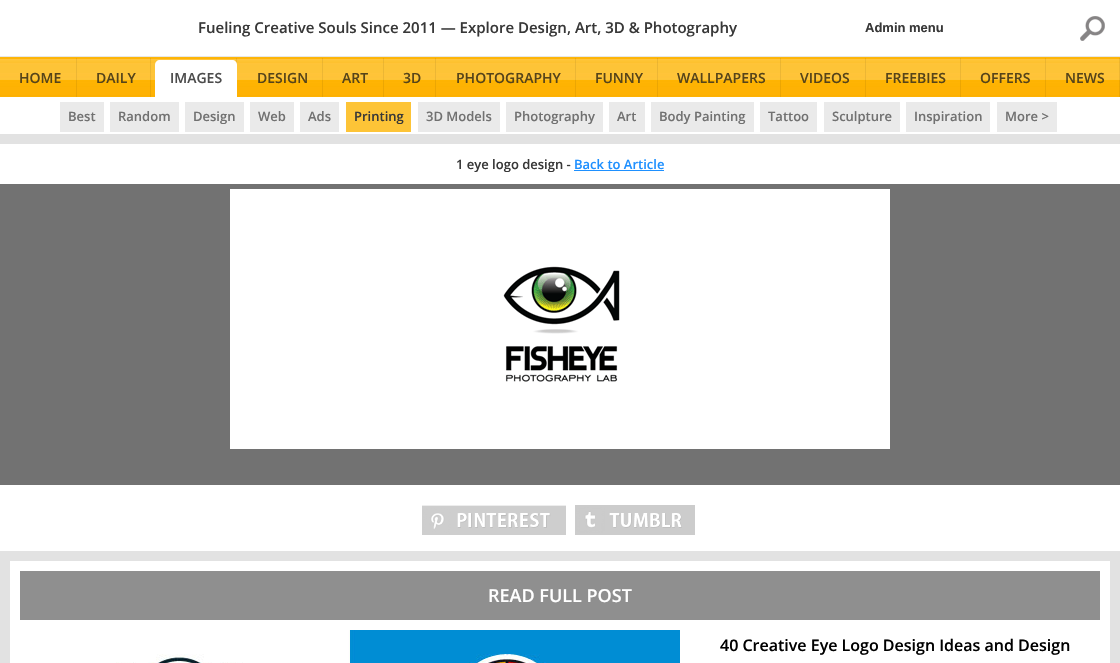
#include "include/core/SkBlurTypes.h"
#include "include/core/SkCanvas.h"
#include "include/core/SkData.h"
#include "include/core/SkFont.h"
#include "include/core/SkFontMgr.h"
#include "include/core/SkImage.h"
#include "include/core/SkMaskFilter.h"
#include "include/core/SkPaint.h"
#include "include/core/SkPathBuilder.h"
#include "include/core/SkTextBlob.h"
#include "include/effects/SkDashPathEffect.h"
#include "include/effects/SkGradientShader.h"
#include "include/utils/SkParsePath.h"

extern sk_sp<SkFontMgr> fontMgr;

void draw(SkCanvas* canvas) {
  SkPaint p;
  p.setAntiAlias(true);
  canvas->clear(SkColorSetRGB(226, 226, 226));
  p.setColor(SK_ColorWHITE);
  canvas->drawRect(SkRect::MakeLTRB(0, 0, 1120, 56), p);
  p.setColor(SkColorSetRGB(231, 231, 231));
  canvas->drawRect(SkRect::MakeLTRB(0, 56, 1120, 57), p);
  canvas->drawImageRect(SkImages::DeferredFromEncodedData(SkData::MakeFromFileName("images/1.png")), SkRect::MakeLTRB(1080, 16, 1105, 41), SkSamplingOptions());
  canvas->drawImageRect(SkImages::DeferredFromEncodedData(SkData::MakeFromFileName("images/2.png")), SkRect::MakeLTRB(0, 57, 1120, 97), SkSamplingOptions());
  p.setColor(SkColorSetARGB(18, 0, 0, 0));
  canvas->drawRect(SkRect::MakeLTRB(76, 58, 77, 97), p);
  canvas->drawRect(SkRect::MakeLTRB(150, 58, 151, 97), p);
  canvas->drawRect(SkRect::MakeLTRB(236, 58, 237, 65), p);
  p.setColor(SK_ColorWHITE);
  canvas->drawPath(SkPathBuilder().moveTo(160, 60).lineTo(232, 60).cubicTo(235, 60, 237, 62, 237, 65).lineTo(237, 97).lineTo(155, 97).lineTo(155, 65).cubicTo(155, 62, 157, 60, 160, 60).close().detach(), p);
  p.setColor(SkColorSetARGB(18, 0, 0, 0));
  canvas->drawRect(SkRect::MakeLTRB(322, 58, 323, 97), p);
  canvas->drawRect(SkRect::MakeLTRB(383, 58, 384, 97), p);
  canvas->drawRect(SkRect::MakeLTRB(435, 58, 436, 97), p);
  canvas->drawRect(SkRect::MakeLTRB(575, 58, 576, 97), p);
  canvas->drawRect(SkRect::MakeLTRB(657, 58, 658, 97), p);
  canvas->drawRect(SkRect::MakeLTRB(780, 58, 781, 97), p);
  canvas->drawRect(SkRect::MakeLTRB(865, 58, 866, 97), p);
  canvas->drawRect(SkRect::MakeLTRB(960, 58, 961, 97), p);
  canvas->drawRect(SkRect::MakeLTRB(1045, 58, 1046, 97), p);
  canvas->drawRect(SkRect::MakeLTRB(1119, 58, 1120, 97), p);
  p.setColor(SK_ColorWHITE);
  canvas->drawRect(SkRect::MakeLTRB(0, 97, 1120, 134), p);
  p.setColor(SkColorSetRGB(234, 234, 234));
  canvas->drawRect(SkRect::MakeLTRB(60, 102, 104, 132), p);
  canvas->drawRect(SkRect::MakeLTRB(110, 102, 179, 132), p);
  canvas->drawRect(SkRect::MakeLTRB(185, 102, 244, 132), p);
  canvas->drawRect(SkRect::MakeLTRB(250, 102, 294, 132), p);
  canvas->drawRect(SkRect::MakeLTRB(300, 102, 339, 132), p);
  p.setColor(SkColorSetRGB(253, 196, 55));
  canvas->drawRect(SkRect::MakeLTRB(346, 102, 411, 132), p);
  p.setColor(SkColorSetRGB(234, 234, 234));
  canvas->drawRect(SkRect::MakeLTRB(418, 102, 500, 132), p);
  canvas->drawRect(SkRect::MakeLTRB(506, 102, 603, 132), p);
  canvas->drawRect(SkRect::MakeLTRB(609, 102, 645, 132), p);
  canvas->drawRect(SkRect::MakeLTRB(651, 102, 754, 132), p);
  canvas->drawRect(SkRect::MakeLTRB(760, 102, 817, 132), p);
  canvas->drawRect(SkRect::MakeLTRB(824, 102, 900, 132), p);
  canvas->drawRect(SkRect::MakeLTRB(906, 102, 990, 132), p);
  canvas->drawRect(SkRect::MakeLTRB(997, 102, 1057, 132), p);
  p.setColor(SkColorSetRGB(114, 114, 114));
  canvas->drawRect(SkRect::MakeLTRB(0, 184, 1120, 485), p);
  p.setColor(SK_ColorWHITE);
  canvas->drawRect(SkRect::MakeLTRB(0, 144, 1120, 184), p);
  p.setColor(SkColorSetRGB(30, 144, 255));
  canvas->drawRect(SkRect::MakeLTRB(574, 170, 664, 171), p);
  canvas->drawImageRect(SkImages::DeferredFromEncodedData(SkData::MakeFromFileName("images/3.png")), SkRect::MakeLTRB(230, 189, 890, 449), SkSamplingOptions());
  p.setColor(SK_ColorWHITE);
  canvas->drawRect(SkRect::MakeLTRB(0, 485, 1120, 551), p);
  canvas->drawImageRect(SkImages::DeferredFromEncodedData(SkData::MakeFromFileName("images/4.png")), SkRect::MakeLTRB(422, 505, 566, 535), SkSamplingOptions());
  canvas->drawImageRect(SkImages::DeferredFromEncodedData(SkData::MakeFromFileName("images/5.png")), SkRect::MakeLTRB(575, 505, 695, 535), SkSamplingOptions());
  canvas->drawRect(SkRect::MakeLTRB(10, 561, 1110, 663), p);
  p.setColor(SkColorSetRGB(143, 143, 143));
  canvas->drawRect(SkRect::MakeLTRB(20, 571, 1100, 620), p);
  canvas->drawImageRect(SkImages::DeferredFromEncodedData(SkData::MakeFromFileName("images/6.png")), SkRect::MakeLTRB(116, 630, 680, 663), SkSamplingOptions());
  SkFont font1(fontMgr->matchFamilyStyle("Open Sans", SkFontStyle(600, SkFontStyle::kNormal_Width, SkFontStyle::kUpright_Slant)), 15);
  font1.setSubpixel(true);
  p.setColor(SkColorSetRGB(56, 56, 56));
  canvas->drawString("Fueling Creative Souls Since 2011 — Explore Design, Art, 3D & Photography", 198, 33, font1, p);
  SkFont font2(fontMgr->matchFamilyStyle("Liberation Sans", SkFontStyle::Bold()), 13);
  font2.setSubpixel(true);
  canvas->drawString("Admin menu", 865, 32, font2, p);
  SkFont font3(fontMgr->matchFamilyStyle("Open Sans", SkFontStyle(600, SkFontStyle::kNormal_Width, SkFontStyle::kUpright_Slant)), 14);
  font3.setSubpixel(true);
  p.setColor(SkColorSetRGB(86, 68, 25));
  canvas->drawString("HOME", 19, 83, font3, p);
  canvas->drawString("DAILY", 96, 83, font3, p);
  p.setColor(SkColorSetRGB(76, 76, 76));
  canvas->drawString("IMAGES", 170, 83, font3, p);
  p.setColor(SkColorSetRGB(86, 68, 25));
  canvas->drawString("DESIGN", 257, 83, font3, p);
  canvas->drawString("ART", 342, 83, font3, p);
  canvas->drawString("3D", 403, 83, font3, p);
  canvas->drawString("PHOTOGRAPHY", 456, 83, font3, p);
  canvas->drawString("FUNNY", 595, 83, font3, p);
  canvas->drawString("WALLPAPERS", 677, 83, font3, p);
  canvas->drawString("VIDEOS", 800, 83, font3, p);
  canvas->drawString("FREEBIES", 885, 83, font3, p);
  canvas->drawString("OFFERS", 980, 83, font3, p);
  canvas->drawString("NEWS", 1065, 83, font3, p);
  SkFont font4(fontMgr->matchFamilyStyle("Open Sans", SkFontStyle(600, SkFontStyle::kNormal_Width, SkFontStyle::kUpright_Slant)), 13);
  font4.setSubpixel(true);
  p.setColor(SkColorSetRGB(113, 113, 113));
  canvas->drawString("Best", 68, 121, font4, p);
  canvas->drawString("Random", 118, 121, font4, p);
  canvas->drawString("Design", 193, 121, font4, p);
  canvas->drawString("Web", 258, 121, font4, p);
  canvas->drawString("Ads", 308, 121, font4, p);
  p.setColor(SkColorSetRGB(56, 56, 56));
  canvas->drawString("Printing", 354, 121, font4, p);
  p.setColor(SkColorSetRGB(113, 113, 113));
  canvas->drawString("3D Models", 426, 121, font4, p);
  canvas->drawString("Photography", 514, 121, font4, p);
  canvas->drawString("Art", 617, 121, font4, p);
  canvas->drawString("Body Painting", 659, 121, font4, p);
  canvas->drawString("Tattoo", 768, 121, font4, p);
  canvas->drawString("Sculpture", 832, 121, font4, p);
  canvas->drawString("Inspiration", 914, 121, font4, p);
  canvas->drawString("More >", 1005, 121, font4, p);
  p.setColor(SkColorSetRGB(56, 56, 56));
  canvas->drawString("1 eye logo design -", 456, 169, font4, p);
  p.setColor(SkColorSetRGB(30, 144, 255));
  canvas->drawString("Back to Article", 574, 169, font4, p);
  SkFont font5(fontMgr->matchFamilyStyle("Open Sans", SkFontStyle(600, SkFontStyle::kNormal_Width, SkFontStyle::kUpright_Slant)), 18);
  font5.setSubpixel(true);
  p.setColor(SK_ColorWHITE);
  canvas->drawString("READ FULL POST", 488, 602, font5, p);
  SkFont font6(fontMgr->matchFamilyStyle("Open Sans", SkFontStyle(600, SkFontStyle::kNormal_Width, SkFontStyle::kUpright_Slant)), 16);
  font6.setSubpixel(true);
  p.setColor(SK_ColorBLACK);
  canvas->drawString("40 Creative Eye Logo Design Ideas and Design", 720, 651, font6, p);
}
